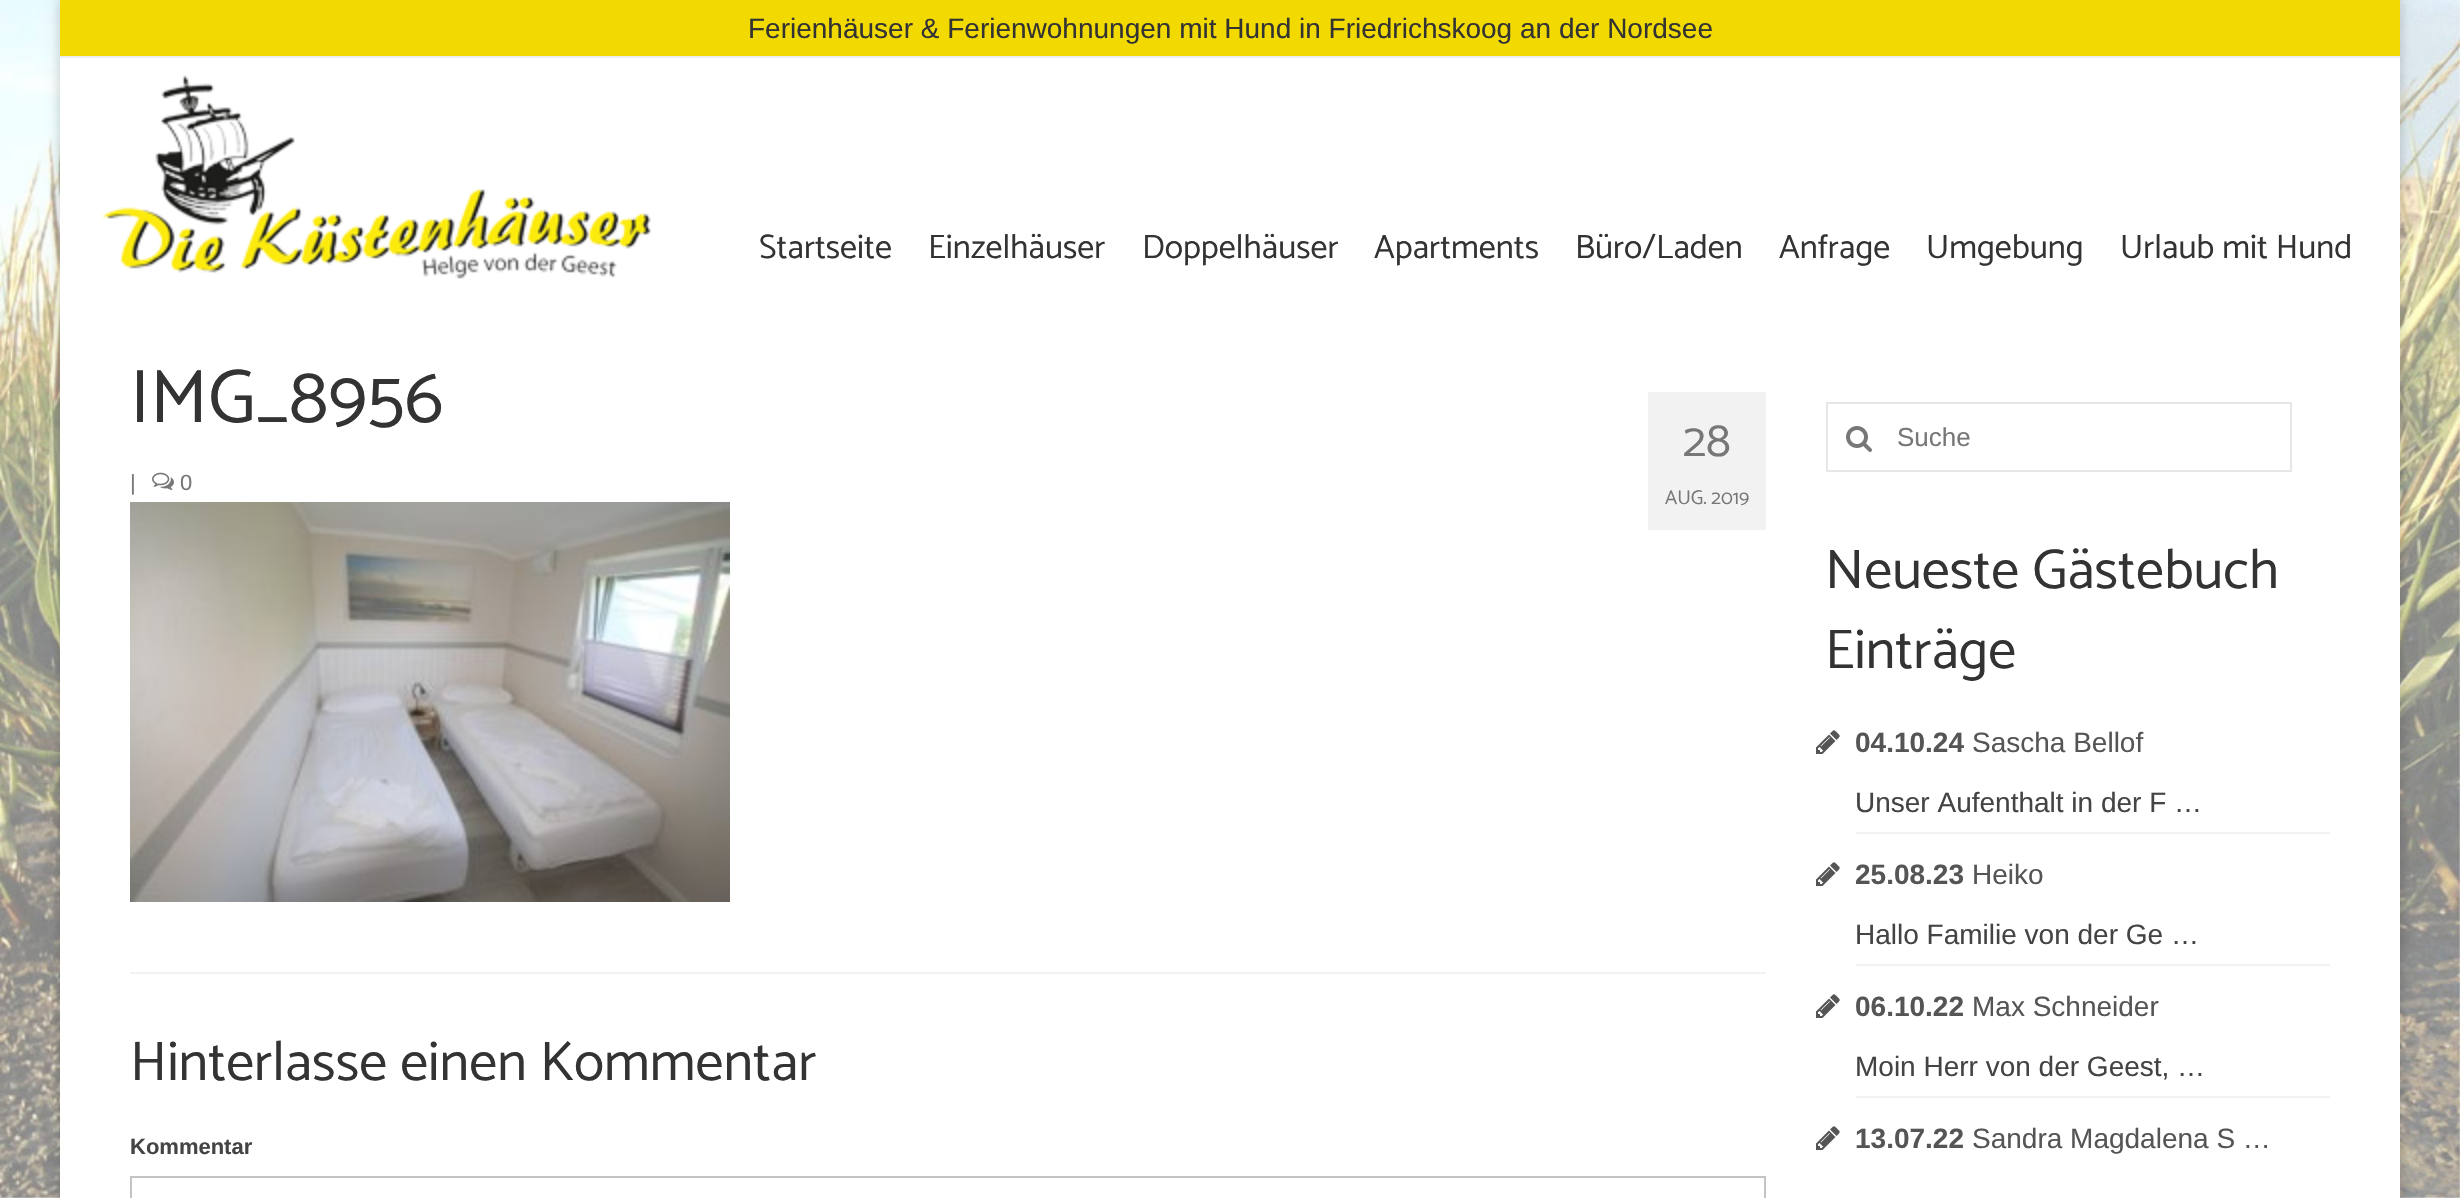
#include "include/core/SkBlurTypes.h"
#include "include/core/SkCanvas.h"
#include "include/core/SkData.h"
#include "include/core/SkFont.h"
#include "include/core/SkFontMgr.h"
#include "include/core/SkImage.h"
#include "include/core/SkMaskFilter.h"
#include "include/core/SkPaint.h"
#include "include/core/SkPathBuilder.h"
#include "include/core/SkTextBlob.h"
#include "include/effects/SkDashPathEffect.h"
#include "include/effects/SkGradientShader.h"
#include "include/utils/SkParsePath.h"

extern sk_sp<SkFontMgr> fontMgr;

void draw(SkCanvas* canvas) {
  SkPaint p;
  p.setAntiAlias(true);
  canvas->clear(SK_ColorWHITE);
  canvas->drawImageRect(SkImages::DeferredFromEncodedData(SkData::MakeFromFileName("images/1.png")), SkRect::MakeLTRB(0, 0, 2460, 1198), SkSamplingOptions());
  p.setColor(SkColorSetARGB(41, 0, 0, 0));
  p.setMaskFilter(SkMaskFilter::MakeBlur(kNormal_SkBlurStyle, 5));
  canvas->drawRect(SkRect::MakeLTRB(58, -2, 2402, 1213), p);
  p.setMaskFilter(nullptr);
  p.setColor(SK_ColorWHITE);
  canvas->drawRect(SkRect::MakeLTRB(60, 58, 2400, 1198), p);
  p.setColor(SkColorSetRGB(242, 218, 0));
  canvas->drawRect(SkRect::MakeLTRB(60, 0, 2400, 56), p);
  p.setColor(SkColorSetRGB(238, 238, 238));
  canvas->drawRect(SkRect::MakeLTRB(60, 56, 2400, 58), p);
  canvas->drawImageRect(SkImages::DeferredFromEncodedData(SkData::MakeFromFileName("images/2.png")), SkRect::MakeLTRB(101, 75, 651, 279), SkSamplingOptions());
  canvas->drawImageRect(SkImages::DeferredFromEncodedData(SkData::MakeFromFileName("images/3.png")), SkRect::MakeLTRB(152, 472, 174, 490), SkSamplingOptions());
  p.setColor(SkColorSetRGB(242, 242, 242));
  canvas->drawRect(SkRect::MakeLTRB(1648, 392, 1766, 530), p);
  canvas->drawImageRect(SkImages::DeferredFromEncodedData(SkData::MakeFromFileName("images/4.png")), SkRect::MakeLTRB(130, 502, 730, 902), SkSamplingOptions());
  canvas->drawRect(SkRect::MakeLTRB(130, 972, 1766, 974), p);
  p.setStyle(SkPaint::kStroke_Style);
  p.setStrokeWidth(2);
  p.setColor(SkColorSetRGB(195, 195, 195));
  canvas->drawRect(SkRect::MakeLTRB(131, 1177, 1765, 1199), p);
  p.setColor(SkColorSetRGB(231, 231, 231));
  canvas->drawRect(SkRect::MakeLTRB(1827, 403, 2291, 471), p);
  canvas->drawImageRect(SkImages::DeferredFromEncodedData(SkData::MakeFromFileName("images/5.png")), SkRect::MakeLTRB(1846, 426, 1872, 452), SkSamplingOptions());
  p.setStyle(SkPaint::kFill_Style);
  p.setColor(SkColorSetRGB(242, 242, 242));
  canvas->drawRect(SkRect::MakeLTRB(1856, 832, 2330, 834), p);
  canvas->drawImageRect(SkImages::DeferredFromEncodedData(SkData::MakeFromFileName("images/6.png")), SkRect::MakeLTRB(1816, 730, 1840, 754), SkSamplingOptions());
  canvas->drawRect(SkRect::MakeLTRB(1856, 964, 2330, 966), p);
  canvas->drawImageRect(SkImages::DeferredFromEncodedData(SkData::MakeFromFileName("images/6.png")), SkRect::MakeLTRB(1816, 862, 1840, 886), SkSamplingOptions());
  canvas->drawRect(SkRect::MakeLTRB(1856, 1096, 2330, 1098), p);
  canvas->drawImageRect(SkImages::DeferredFromEncodedData(SkData::MakeFromFileName("images/6.png")), SkRect::MakeLTRB(1816, 994, 1840, 1018), SkSamplingOptions());
  canvas->drawImageRect(SkImages::DeferredFromEncodedData(SkData::MakeFromFileName("images/6.png")), SkRect::MakeLTRB(1816, 1126, 1840, 1150), SkSamplingOptions());
  SkFont font1(fontMgr->matchFamilyStyle("Liberation Sans", SkFontStyle::Normal()), 28);
  font1.setSubpixel(true);
  p.setColor(SkColorSetRGB(51, 51, 51));
  canvas->drawString("Ferienhäuser & Ferienwohnungen mit Hund in Friedrichskoog an der Nordsee", 748, 38, font1, p);
  SkFont font2(fontMgr->matchFamilyStyle("Catamaran", SkFontStyle(100, SkFontStyle::kNormal_Width, SkFontStyle::kUpright_Slant)), 34);
  font2.setSubpixel(true);
  canvas->drawString("Startseite", 759, 258, font2, p);
  canvas->drawString("Einzelhäuser", 928, 258, font2, p);
  canvas->drawString("Doppelhäuser", 1142, 258, font2, p);
  canvas->drawString("Apartments", 1374, 258, font2, p);
  canvas->drawString("Büro/Laden", 1575, 258, font2, p);
  canvas->drawString("Anfrage", 1779, 258, font2, p);
  canvas->drawString("Umgebung", 1926, 258, font2, p);
  canvas->drawString("Urlaub mit Hund", 2120, 258, font2, p);
  SkFont font3(fontMgr->matchFamilyStyle("Catamaran", SkFontStyle(100, SkFontStyle::kNormal_Width, SkFontStyle::kUpright_Slant)), 76);
  font3.setSubpixel(true);
  canvas->drawString("IMG_8956", 130, 422, font3, p);
  SkFont font4(fontMgr->matchFamilyStyle("Liberation Sans", SkFontStyle::Normal()), 22);
  font4.setSubpixel(true);
  p.setColor(SkColorSetRGB(119, 119, 119));
  canvas->drawString("|", 130, 490, font4, p);
  canvas->drawString("0", 180, 490, font4, p);
  SkFont font5(fontMgr->matchFamilyStyle("Catamaran", SkFontStyle(100, SkFontStyle::kNormal_Width, SkFontStyle::kUpright_Slant)), 48);
  font5.setSubpixel(true);
  canvas->drawString("28", 1683, 456, font5, p);
  SkFont font6(fontMgr->matchFamilyStyle("Catamaran", SkFontStyle(100, SkFontStyle::kNormal_Width, SkFontStyle::kUpright_Slant)), 20);
  font6.setSubpixel(true);
  canvas->drawString("AUG. 2019", 1665, 504, font6, p);
  SkFont font7(fontMgr->matchFamilyStyle("Catamaran", SkFontStyle(100, SkFontStyle::kNormal_Width, SkFontStyle::kUpright_Slant)), 56);
  font7.setSubpixel(true);
  p.setColor(SkColorSetRGB(51, 51, 51));
  canvas->drawString("Hinterlasse einen Kommentar", 130, 1080, font7, p);
  SkFont font8(fontMgr->matchFamilyStyle("Liberation Sans", SkFontStyle::Bold()), 22);
  font8.setSubpixel(true);
  p.setColor(SkColorSetRGB(68, 68, 68));
  canvas->drawString("Kommentar", 130, 1154, font8, p);
  SkFont font9(fontMgr->matchFamilyStyle("Liberation Sans", SkFontStyle::Normal()), 26);
  font9.setSubpixel(true);
  p.setColor(SkColorSetRGB(119, 119, 119));
  canvas->drawString("Suche", 1897, 446, font9, p);
  p.setColor(SkColorSetRGB(51, 51, 51));
  canvas->drawString("Neueste Gästebuch", 1825, 588, font7, p);
  canvas->drawString("Einträge", 1825, 668, font7, p);
  SkFont font10(fontMgr->matchFamilyStyle("Liberation Sans", SkFontStyle::Bold()), 28);
  font10.setSubpixel(true);
  p.setColor(SkColorSetRGB(85, 85, 85));
  canvas->drawString("04.10.24", 1855, 752, font10, p);
  canvas->drawString("Sascha Bellof", 1972, 752, font1, p);
  p.setColor(SkColorSetRGB(68, 68, 68));
  canvas->drawString("Unser Aufenthalt in der F …", 1855, 812, font1, p);
  p.setColor(SkColorSetRGB(85, 85, 85));
  canvas->drawString("25.08.23", 1855, 884, font10, p);
  canvas->drawString("Heiko", 1972, 884, font1, p);
  p.setColor(SkColorSetRGB(68, 68, 68));
  canvas->drawString("Hallo Familie von der Ge …", 1855, 944, font1, p);
  p.setColor(SkColorSetRGB(85, 85, 85));
  canvas->drawString("06.10.22", 1855, 1016, font10, p);
  canvas->drawString("Max Schneider", 1972, 1016, font1, p);
  p.setColor(SkColorSetRGB(68, 68, 68));
  canvas->drawString("Moin Herr von der Geest, …", 1855, 1076, font1, p);
  p.setColor(SkColorSetRGB(85, 85, 85));
  canvas->drawString("13.07.22", 1855, 1148, font10, p);
  canvas->drawString("Sandra Magdalena S …", 1972, 1148, font1, p);
}
